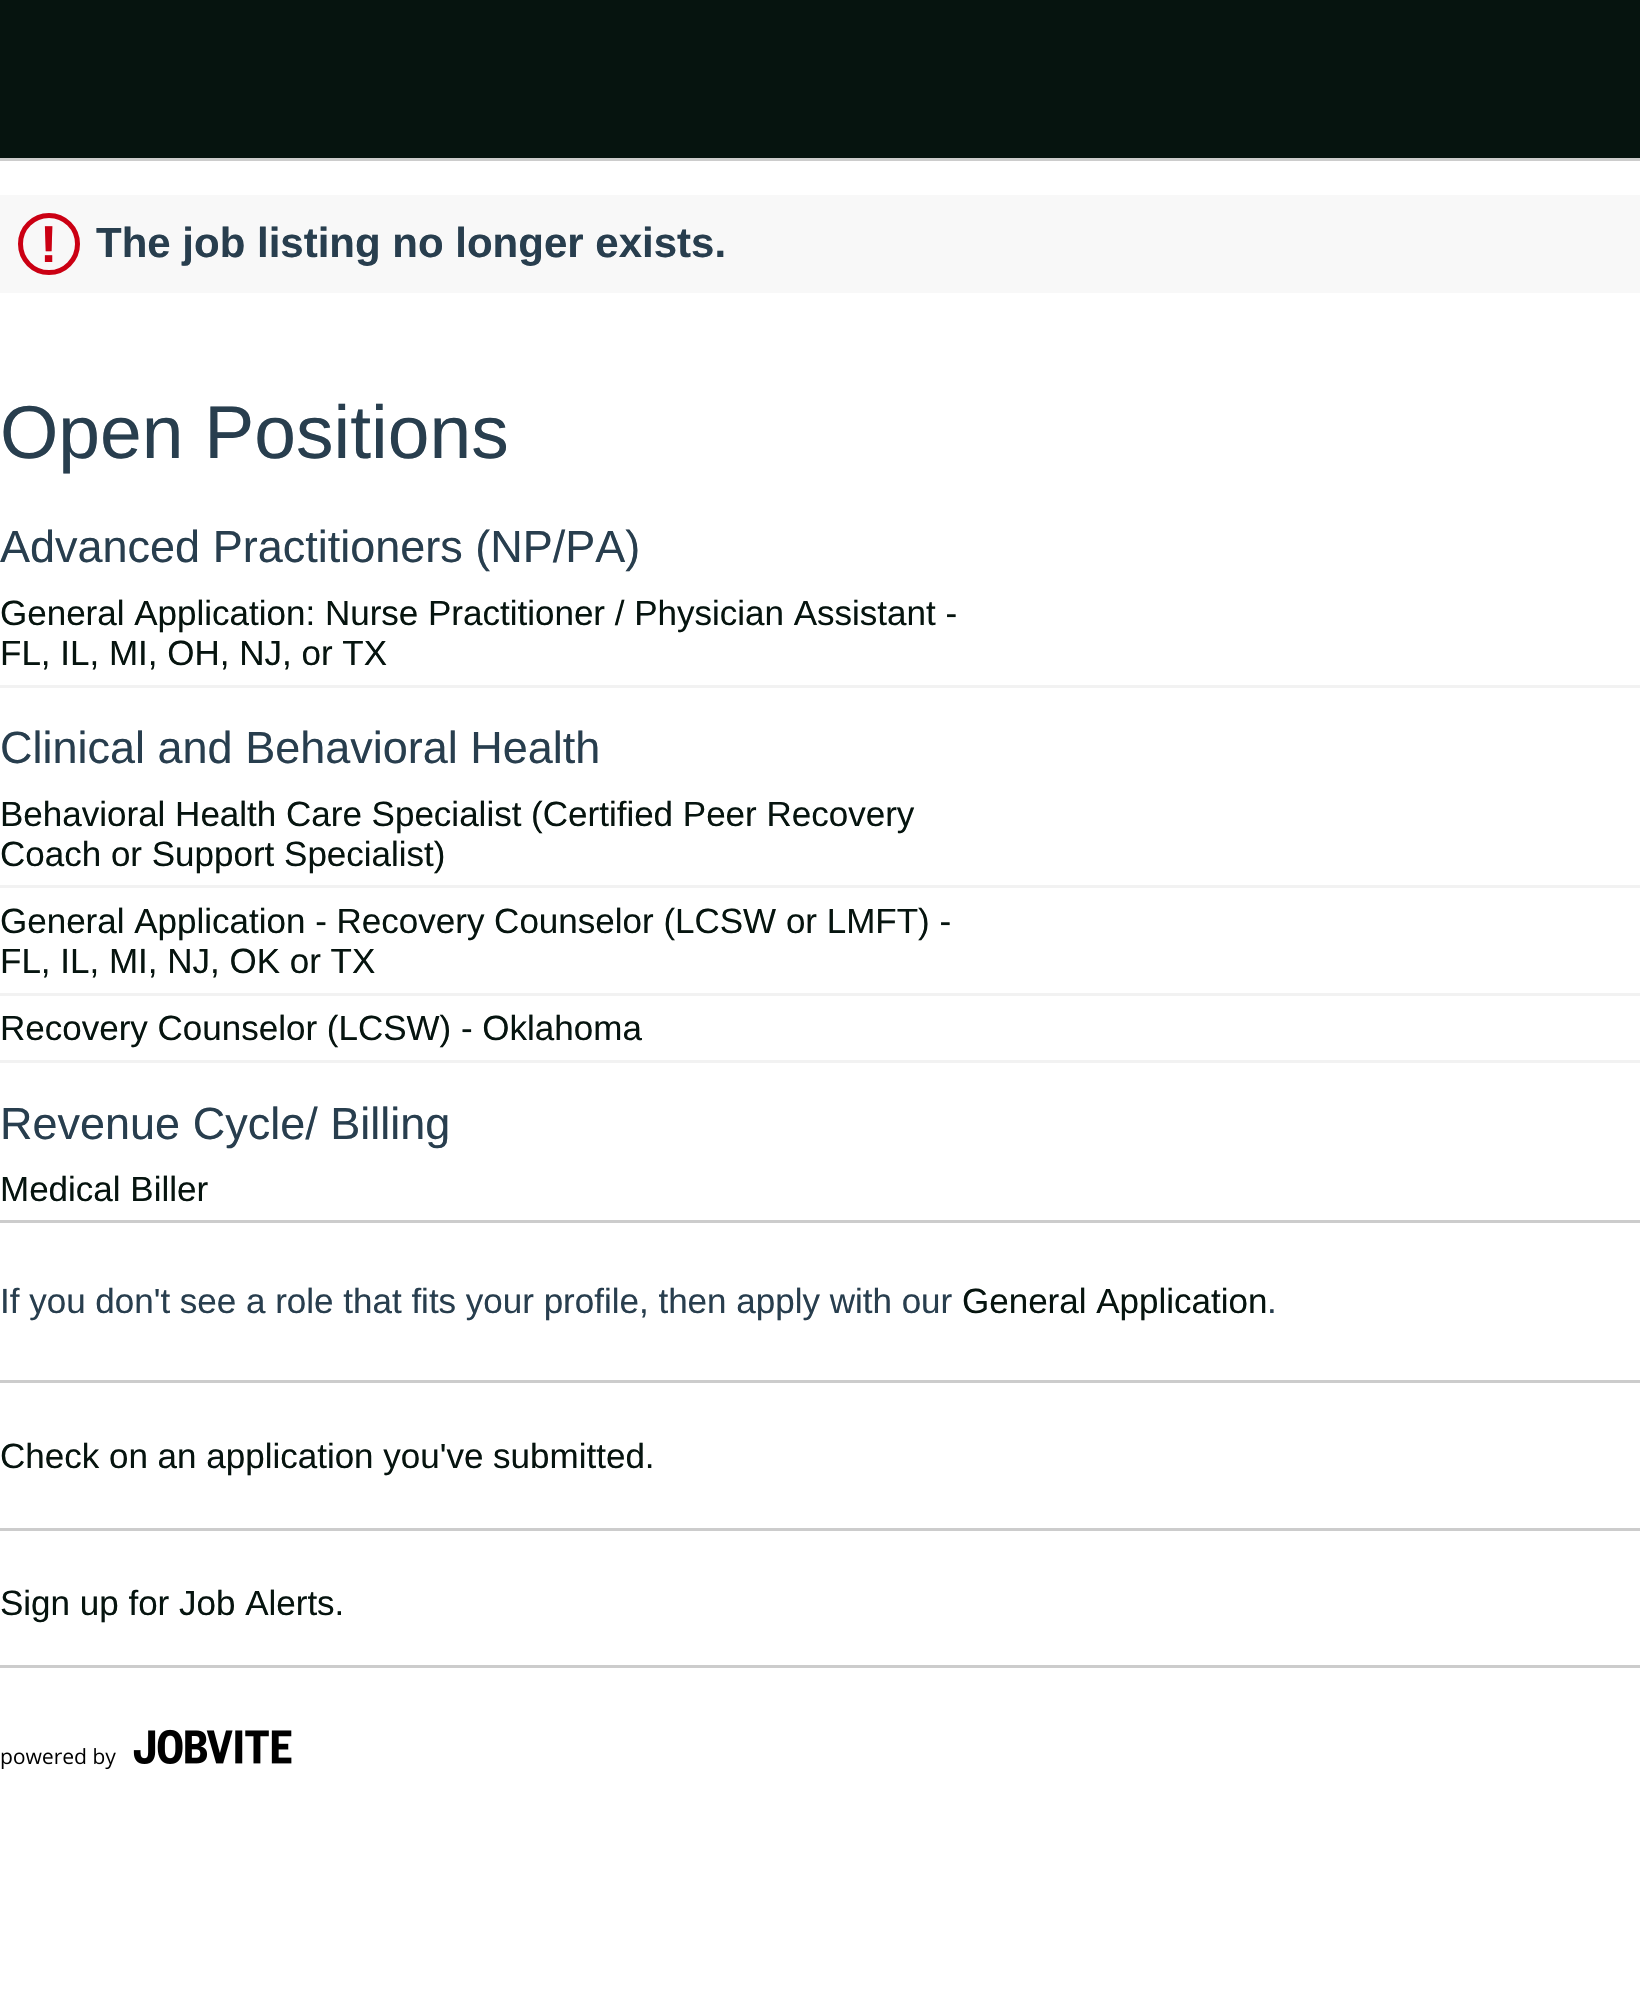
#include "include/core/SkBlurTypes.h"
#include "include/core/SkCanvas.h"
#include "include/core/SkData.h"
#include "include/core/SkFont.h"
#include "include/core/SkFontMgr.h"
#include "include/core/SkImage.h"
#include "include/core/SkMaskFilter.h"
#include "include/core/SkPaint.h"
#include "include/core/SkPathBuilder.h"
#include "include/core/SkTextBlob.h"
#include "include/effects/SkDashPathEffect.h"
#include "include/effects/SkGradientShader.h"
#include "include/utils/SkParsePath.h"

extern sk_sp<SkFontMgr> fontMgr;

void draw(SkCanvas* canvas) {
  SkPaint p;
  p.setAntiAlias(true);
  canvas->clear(SK_ColorWHITE);
  p.setColor(SkColorSetRGB(6, 20, 15));
  canvas->drawRect(SkRect::MakeLTRB(0, 0, 1640, 158), p);
  p.setColor(SkColorSetRGB(204, 204, 204));
  canvas->drawRect(SkRect::MakeLTRB(0, 158, 1640, 161), p);
  p.setColor(SkColorSetRGB(248, 248, 248));
  canvas->drawRect(SkRect::MakeLTRB(0, 195, 1640, 293), p);
  p.setStyle(SkPaint::kStroke_Style);
  p.setStrokeWidth(5);
  p.setColor(SkColorSetRGB(203, 0, 19));
  canvas->drawCircle(49, 244, 28.5f, p);
  p.setStyle(SkPaint::kFill_Style);
  p.setColor(SkColorSetRGB(242, 242, 242));
  canvas->drawRect(SkRect::MakeLTRB(0, 685, 1640, 688), p);
  canvas->drawRect(SkRect::MakeLTRB(0, 885, 1640, 888), p);
  canvas->drawRect(SkRect::MakeLTRB(0, 993, 1640, 996), p);
  canvas->drawRect(SkRect::MakeLTRB(0, 1060, 1640, 1063), p);
  p.setColor(SkColorSetRGB(204, 204, 204));
  canvas->drawRect(SkRect::MakeLTRB(0, 1220, 1640, 1223), p);
  canvas->drawRect(SkRect::MakeLTRB(0, 1380, 1640, 1383), p);
  canvas->drawRect(SkRect::MakeLTRB(0, 1528, 1640, 1531), p);
  canvas->drawRect(SkRect::MakeLTRB(0, 1665, 1640, 1668), p);
  canvas->drawImageRect(SkImages::DeferredFromEncodedData(SkData::MakeFromFileName("images/1.png")), SkRect::MakeLTRB(1, 1729, 292, 1770), SkSamplingOptions());
  SkFont font1(fontMgr->matchFamilyStyle("Liberation Sans", SkFontStyle::Bold()), 52);
  font1.setSubpixel(true);
  p.setColor(SkColorSetRGB(203, 0, 19));
  canvas->drawString("!", 40, 262, font1, p);
  SkFont font2(fontMgr->matchFamilyStyle("Liberation Sans", SkFontStyle::Bold()), 42);
  font2.setSubpixel(true);
  p.setColor(SkColorSetRGB(40, 62, 78));
  canvas->drawString("The job listing no longer exists.", 96, 257, font2, p);
  SkFont font3(fontMgr->matchFamilyStyle("Liberation Sans", SkFontStyle::Normal()), 75);
  font3.setSubpixel(true);
  canvas->drawString("Open Positions", 0, 458, font3, p);
  SkFont font4(fontMgr->matchFamilyStyle("Liberation Sans", SkFontStyle::Normal()), 45);
  font4.setSubpixel(true);
  canvas->drawString("Advanced Practitioners (NP/PA)", 0, 562, font4, p);
  SkFont font5(fontMgr->matchFamilyStyle("Liberation Sans", SkFontStyle::Normal()), 35);
  font5.setSubpixel(true);
  p.setColor(SkColorSetRGB(6, 20, 15));
  canvas->drawString("General Application: Nurse Practitioner / Physician Assistant -", 0, 625, font5, p);
  canvas->drawString("FL, IL, MI, OH, NJ, or TX", 0, 665, font5, p);
  p.setColor(SkColorSetRGB(40, 62, 78));
  canvas->drawString("Clinical and Behavioral Health", 0, 763, font4, p);
  p.setColor(SkColorSetRGB(6, 20, 15));
  canvas->drawString("Behavioral Health Care Specialist (Certified Peer Recovery", 0, 826, font5, p);
  canvas->drawString("Coach or Support Specialist)", 0, 866, font5, p);
  canvas->drawString("General Application - Recovery Counselor (LCSW or LMFT) -", 0, 933, font5, p);
  canvas->drawString("FL, IL, MI, NJ, OK or TX", 0, 973, font5, p);
  canvas->drawString("Recovery Counselor (LCSW) - Oklahoma", 0, 1040, font5, p);
  p.setColor(SkColorSetRGB(40, 62, 78));
  canvas->drawString("Revenue Cycle/ Billing", 0, 1139, font4, p);
  p.setColor(SkColorSetRGB(6, 20, 15));
  canvas->drawString("Medical Biller", 0, 1201, font5, p);
  p.setColor(SkColorSetRGB(40, 62, 78));
  canvas->drawString("If you don't see a role that fits your profile, then apply with our", 0, 1313, font5, p);
  p.setColor(SkColorSetRGB(6, 20, 15));
  canvas->drawString("General Application", 962, 1313, font5, p);
  p.setColor(SkColorSetRGB(40, 62, 78));
  canvas->drawString(".", 1267, 1313, font5, p);
  p.setColor(SkColorSetRGB(6, 20, 15));
  canvas->drawString("Check on an application you've submitted.", 0, 1468, font5, p);
  canvas->drawString("Sign up for Job Alerts.", 0, 1615, font5, p);
}
